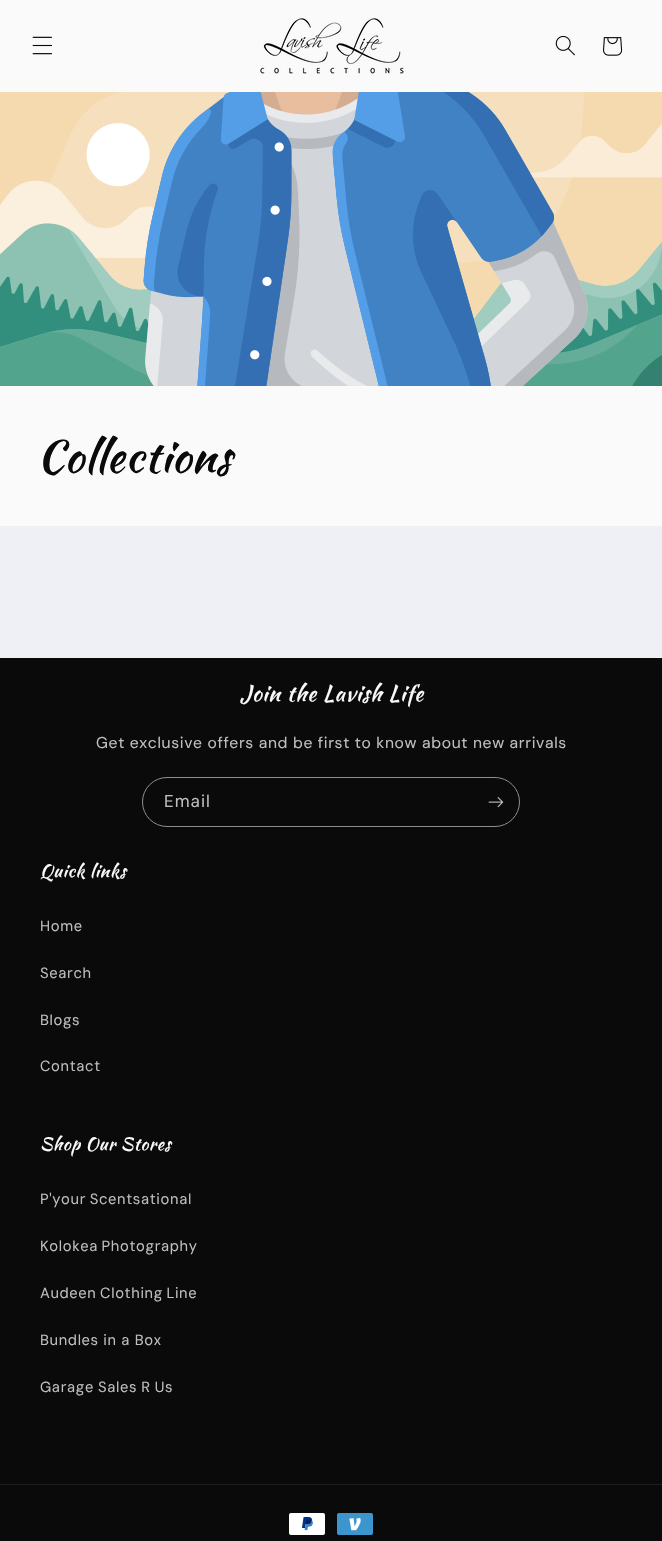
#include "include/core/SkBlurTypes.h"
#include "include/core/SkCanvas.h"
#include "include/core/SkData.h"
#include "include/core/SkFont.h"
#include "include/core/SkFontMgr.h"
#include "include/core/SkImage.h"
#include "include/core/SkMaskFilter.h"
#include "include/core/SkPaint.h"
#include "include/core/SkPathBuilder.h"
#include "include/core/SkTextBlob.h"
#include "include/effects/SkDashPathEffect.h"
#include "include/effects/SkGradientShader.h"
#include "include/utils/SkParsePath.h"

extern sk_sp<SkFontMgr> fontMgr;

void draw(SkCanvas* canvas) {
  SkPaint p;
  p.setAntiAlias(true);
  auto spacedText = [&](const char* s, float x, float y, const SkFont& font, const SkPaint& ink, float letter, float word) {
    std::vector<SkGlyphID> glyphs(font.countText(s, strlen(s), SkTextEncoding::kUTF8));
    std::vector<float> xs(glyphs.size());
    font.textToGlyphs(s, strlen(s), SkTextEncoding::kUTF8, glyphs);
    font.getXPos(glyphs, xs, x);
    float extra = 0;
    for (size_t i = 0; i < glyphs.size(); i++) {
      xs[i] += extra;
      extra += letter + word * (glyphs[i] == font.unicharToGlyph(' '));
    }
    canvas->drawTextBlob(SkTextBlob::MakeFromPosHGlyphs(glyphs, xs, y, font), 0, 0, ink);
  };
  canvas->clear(SkColorSetRGB(239, 240, 245));
  p.setColor(SkColorSetRGB(250, 250, 250));
  canvas->drawRect(SkRect::MakeLTRB(0, 0, 662, 92), p);
  canvas->drawImageRect(SkImages::DeferredFromEncodedData(SkData::MakeFromFileName("images/1.png")), SkRect::MakeLTRB(32, 36, 52, 55), SkSamplingOptions());
  canvas->drawImageRect(SkImages::DeferredFromEncodedData(SkData::MakeFromFileName("images/2.png")), SkRect::MakeLTRB(260, 18, 404, 74), SkSamplingOptions());
  canvas->drawImageRect(SkImages::DeferredFromEncodedData(SkData::MakeFromFileName("images/3.png")), SkRect::MakeLTRB(555, 35, 575, 56), SkSamplingOptions());
  canvas->drawImageRect(SkImages::DeferredFromEncodedData(SkData::MakeFromFileName("images/4.png")), SkRect::MakeLTRB(603, 37, 623, 56), SkSamplingOptions());
  canvas->drawImageRect(SkImages::DeferredFromEncodedData(SkData::MakeFromFileName("images/5.png")), SkRect::MakeLTRB(0, 92, 662, 386), SkSamplingOptions());
  canvas->drawRect(SkRect::MakeLTRB(0, 386, 662, 526), p);
  p.setColor(SkColorSetRGB(10, 10, 10));
  canvas->drawRect(SkRect::MakeLTRB(0, 658, 662, 1541), p);
  p.setStyle(SkPaint::kStroke_Style);
  p.setStrokeWidth(1);
  p.setColor(SkColorSetRGB(142, 142, 142));
  canvas->drawRoundRect(SkRect::MakeLTRB(142.5f, 777.5f, 519.5f, 826.5f), 24.5f, 24.5f, p);
  canvas->drawImageRect(SkImages::DeferredFromEncodedData(SkData::MakeFromFileName("images/6.png")), SkRect::MakeLTRB(488, 797, 504, 808), SkSamplingOptions());
  p.setStyle(SkPaint::kFill_Style);
  p.setColor(SkColorSetRGB(29, 29, 29));
  canvas->drawRect(SkRect::MakeLTRB(0, 1484, 662, 1485), p);
  canvas->drawImageRect(SkImages::DeferredFromEncodedData(SkData::MakeFromFileName("images/7.png")), SkRect::MakeLTRB(289, 1513, 325, 1535), SkSamplingOptions());
  canvas->drawImageRect(SkImages::DeferredFromEncodedData(SkData::MakeFromFileName("images/8.png")), SkRect::MakeLTRB(337, 1513, 373, 1535), SkSamplingOptions());
  SkFont font1(fontMgr->matchFamilyStyle("Kaushan Script", SkFontStyle::Normal()), 44);
  font1.setSubpixel(true);
  p.setColor(SkColorSetRGB(10, 10, 10));
  spacedText("Collections", 37, 472, font1, p, 0.7f, 0);
  SkFont font2(fontMgr->matchFamilyStyle("Kaushan Script", SkFontStyle::Normal()), 22);
  font2.setSubpixel(true);
  p.setColor(SkColorSetRGB(250, 250, 250));
  spacedText("Join the Lavish Life", 240, 701, font2, p, 0.7f, 0);
  SkFont font3(fontMgr->matchFamilyStyle("DM Sans", SkFontStyle::Normal()), 15.75f);
  font3.setSubpixel(true);
  p.setColor(SkColorSetRGB(190, 190, 190));
  spacedText("Get exclusive offers and be first to know about new arrivals", 96, 748, font3, p, 0.63f, 0);
  SkFont font4(fontMgr->matchFamilyStyle("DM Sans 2", SkFontStyle::Normal()), 17);
  font4.setSubpixel(true);
  spacedText("Email", 164, 807, font4, p, 1, 0);
  SkFont font5(fontMgr->matchFamilyStyle("Kaushan Script", SkFontStyle::Normal()), 17.5f);
  font5.setSubpixel(true);
  p.setColor(SkColorSetRGB(250, 250, 250));
  spacedText("Quick links", 40, 877, font5, p, 0.7f, 0);
  SkFont font6(fontMgr->matchFamilyStyle("DM Sans 2", SkFontStyle::Normal()), 14.75f);
  font6.setSubpixel(true);
  p.setColor(SkColorSetRGB(190, 190, 190));
  spacedText("Home", 40, 931, font6, p, 0.63f, 0);
  spacedText("Search", 40, 978, font6, p, 0.63f, 0);
  spacedText("Blogs", 40, 1025, font6, p, 0.63f, 0);
  spacedText("Contact", 40, 1071, font6, p, 0.63f, 0);
  p.setColor(SkColorSetRGB(250, 250, 250));
  spacedText("Shop Our Stores", 40, 1150, font5, p, 0.7f, 0);
  p.setColor(SkColorSetRGB(190, 190, 190));
  spacedText("P'your Scentsational", 40, 1204, font6, p, 0.63f, -1);
  spacedText("Kolokea Photography", 40, 1251, font6, p, 0.63f, -1);
  spacedText("Audeen Clothing Line", 40, 1298, font6, p, 0.63f, -1);
  spacedText("Bundles in a Box", 40, 1345, font6, p, 0.63f, 0);
  spacedText("Garage Sales R Us", 40, 1392, font6, p, 0.63f, -0.5f);
}
